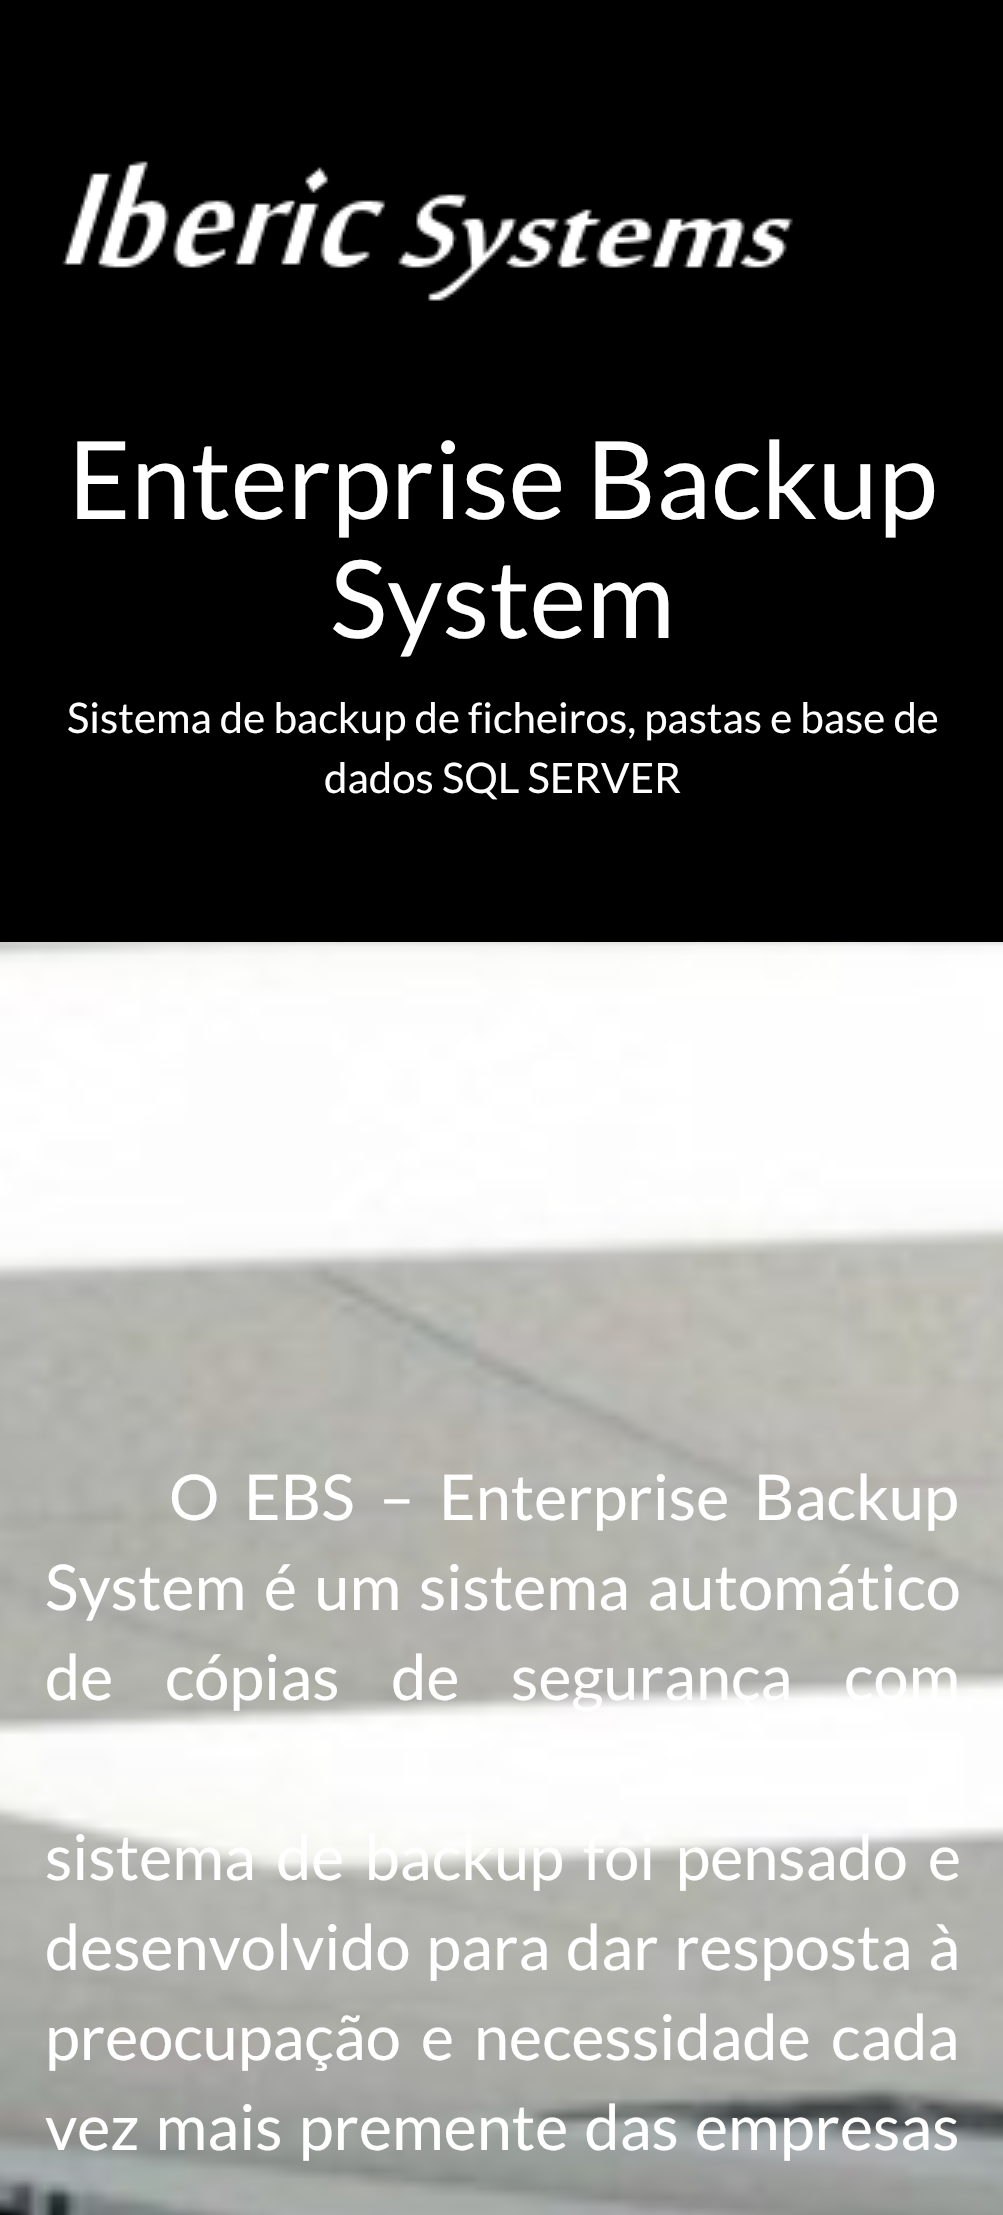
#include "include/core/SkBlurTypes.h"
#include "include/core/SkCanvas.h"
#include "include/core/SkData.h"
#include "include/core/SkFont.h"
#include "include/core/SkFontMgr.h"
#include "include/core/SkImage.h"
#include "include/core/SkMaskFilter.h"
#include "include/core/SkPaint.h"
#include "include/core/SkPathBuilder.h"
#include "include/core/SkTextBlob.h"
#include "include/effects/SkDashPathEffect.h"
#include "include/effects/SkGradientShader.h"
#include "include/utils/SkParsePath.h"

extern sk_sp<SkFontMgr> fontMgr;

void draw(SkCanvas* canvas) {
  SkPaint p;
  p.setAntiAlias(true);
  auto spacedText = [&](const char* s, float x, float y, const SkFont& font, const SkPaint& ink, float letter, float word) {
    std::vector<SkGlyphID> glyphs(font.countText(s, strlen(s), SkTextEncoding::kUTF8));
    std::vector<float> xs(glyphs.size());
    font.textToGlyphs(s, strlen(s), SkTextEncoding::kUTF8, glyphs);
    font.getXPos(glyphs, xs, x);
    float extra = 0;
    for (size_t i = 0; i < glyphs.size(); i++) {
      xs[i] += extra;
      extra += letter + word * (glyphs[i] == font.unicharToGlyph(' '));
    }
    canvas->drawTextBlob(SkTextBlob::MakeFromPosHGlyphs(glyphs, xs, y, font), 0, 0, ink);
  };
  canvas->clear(SK_ColorBLACK);
  canvas->drawImageRect(SkImages::DeferredFromEncodedData(SkData::MakeFromFileName("images/1.png")), SkRect::MakeLTRB(62, 161, 793, 301), SkSamplingOptions());
  canvas->drawImageRect(SkImages::DeferredFromEncodedData(SkData::MakeFromFileName("images/2.png")), SkRect::MakeLTRB(0, 942, 1003, 2215), SkSamplingOptions());
  SkFont font1(fontMgr->matchFamilyStyle("Lato", SkFontStyle::Normal()), 108);
  font1.setSubpixel(true);
  p.setColor(SK_ColorWHITE);
  canvas->drawString("Enterprise Backup", 68, 519, font1, p);
  canvas->drawString("System", 330, 638, font1, p);
  SkFont font2(fontMgr->matchFamilyStyle("Lato", SkFontStyle::Normal()), 42);
  font2.setSubpixel(true);
  canvas->drawString("Sistema de backup de ficheiros, pastas e base de", 67, 733, font2, p);
  canvas->drawString("dados SQL SERVER", 324, 793, font2, p);
  SkFont font3(fontMgr->matchFamilyStyle("Lato", SkFontStyle::Normal()), 63);
  font3.setSubpixel(true);
  spacedText("O EBS – Enterprise Backup", 169, 1520, font3, p, 0, 12.5f);
  spacedText("System é um sistema automático", 45, 1610, font3, p, 0, 5.5f);
  spacedText("de cópias de segurança com", 45, 1700, font3, p, 0, 39.5f);
  spacedText("sistema de backup", 45, 1880, font3, p, 0, 8);
  spacedText("foi pensado e", 583, 1880, font3, p, 0, 8);
  spacedText("desenvolvido para dar resposta à", 45, 1970, font3, p, 0, 3.5f);
  spacedText("preocupação e necessidade", 45, 2060, font3, p, 0, 8);
  canvas->drawString("cada", 831, 2060, font3, p);
  spacedText("vez mais premente das empresas", 45, 2150, font3, p, 0, 4);
}
